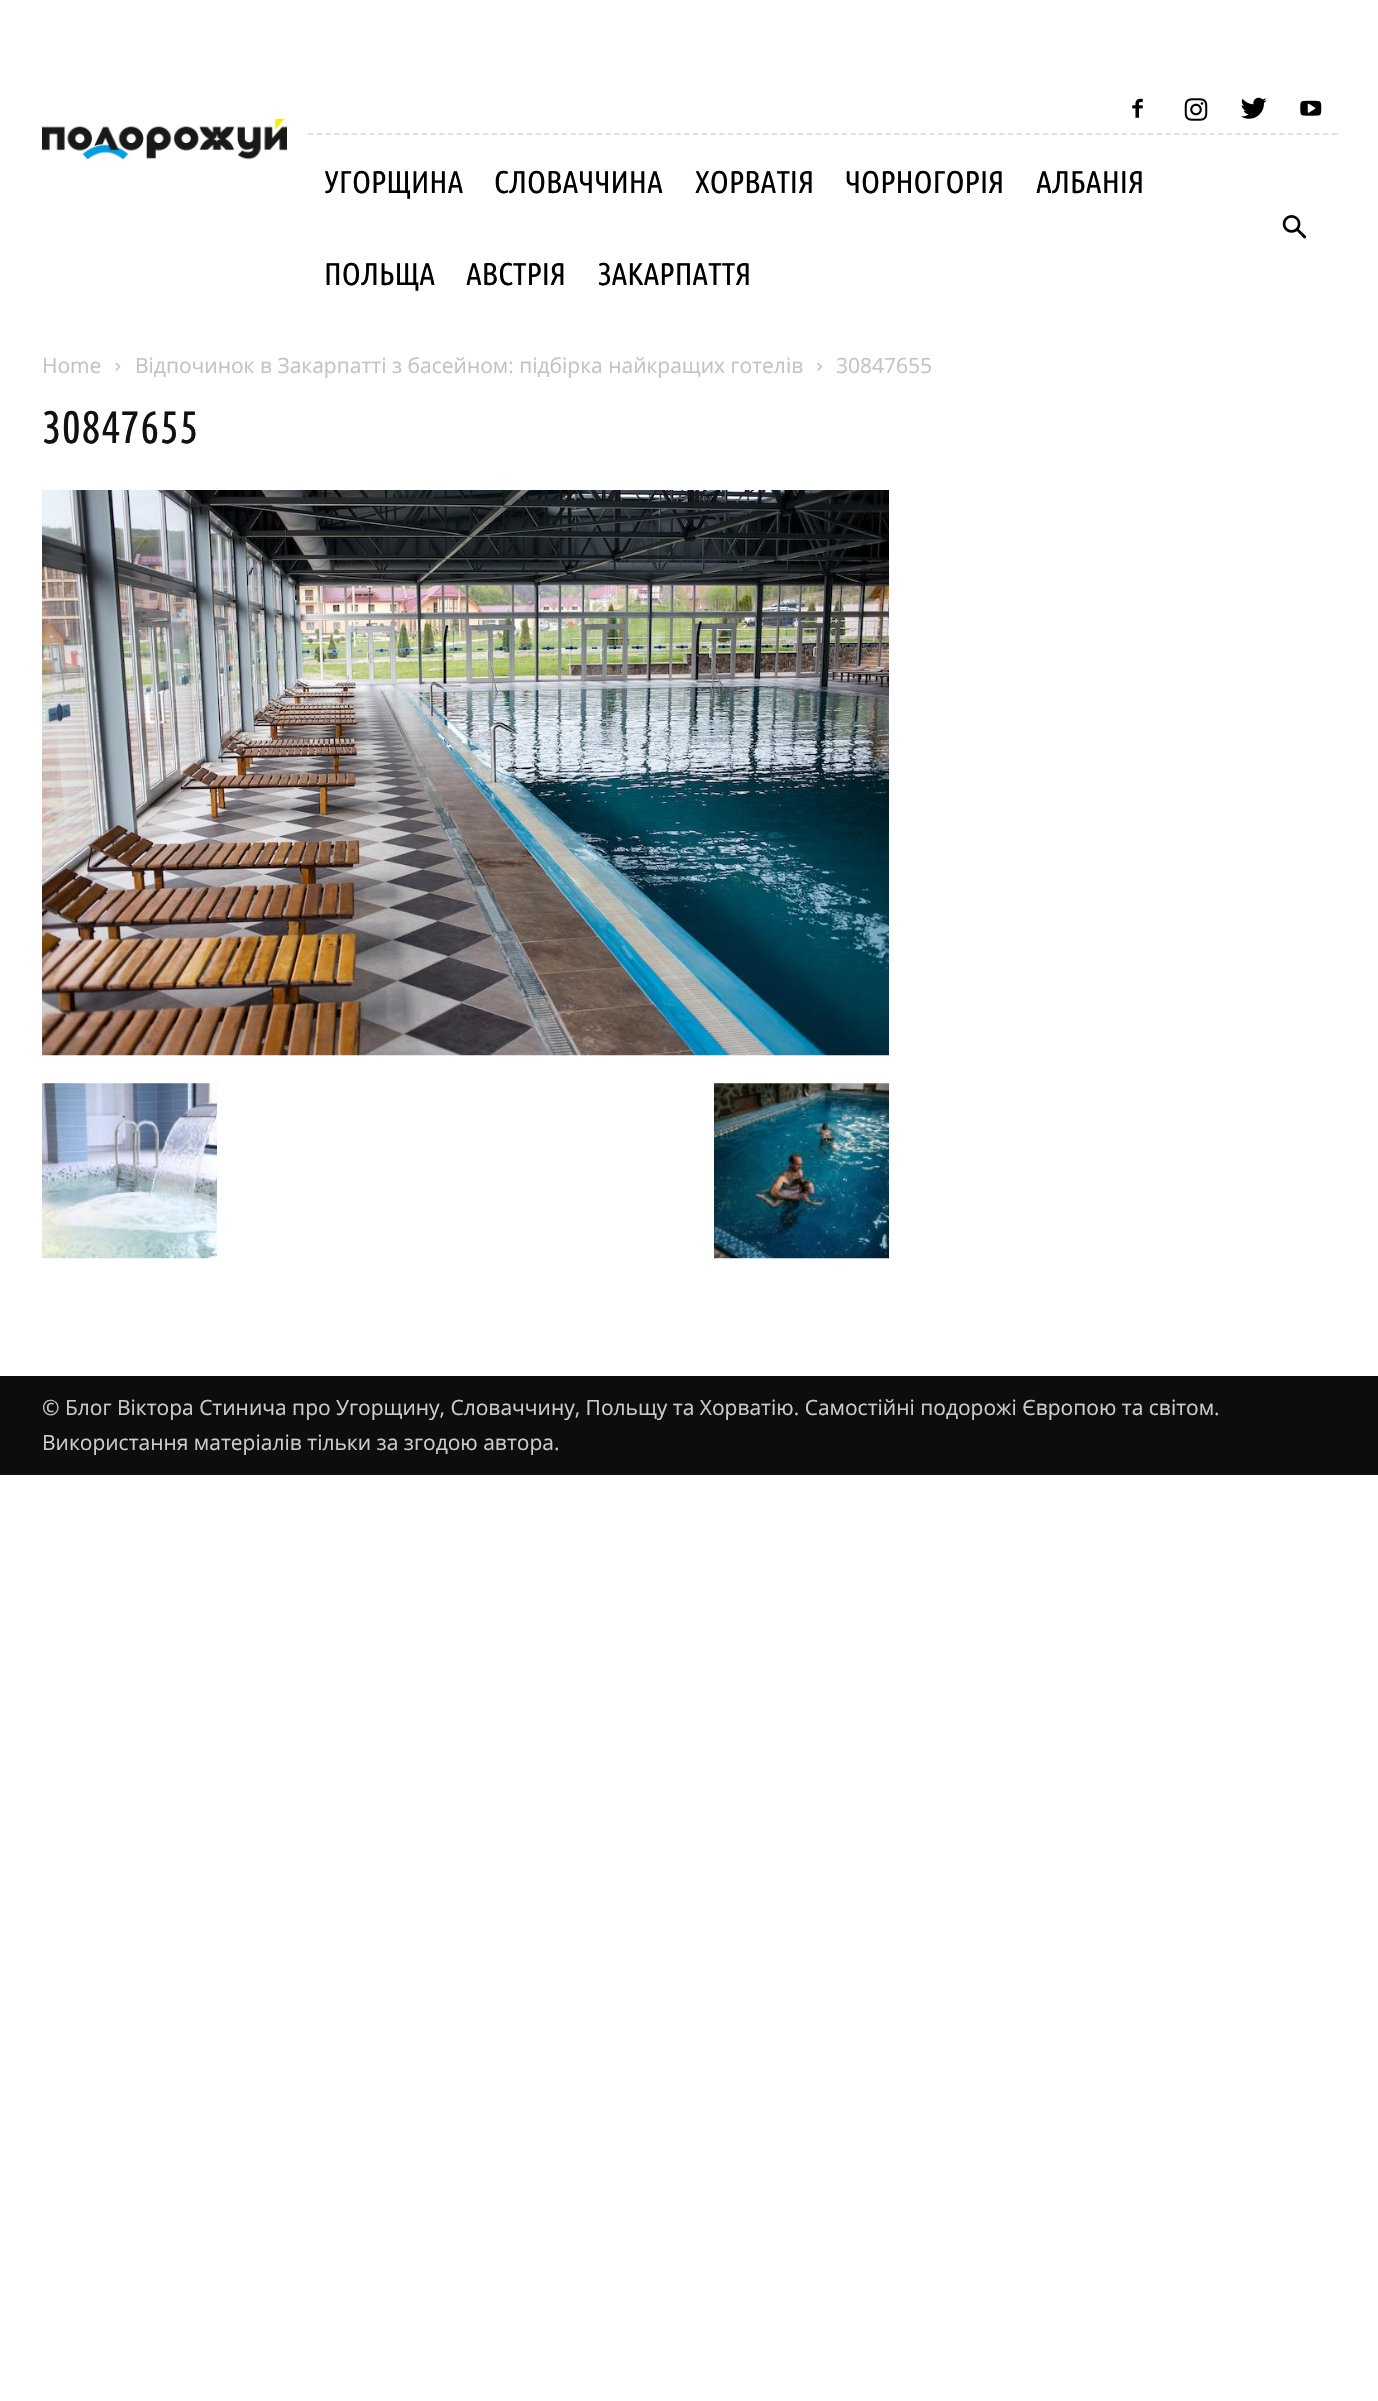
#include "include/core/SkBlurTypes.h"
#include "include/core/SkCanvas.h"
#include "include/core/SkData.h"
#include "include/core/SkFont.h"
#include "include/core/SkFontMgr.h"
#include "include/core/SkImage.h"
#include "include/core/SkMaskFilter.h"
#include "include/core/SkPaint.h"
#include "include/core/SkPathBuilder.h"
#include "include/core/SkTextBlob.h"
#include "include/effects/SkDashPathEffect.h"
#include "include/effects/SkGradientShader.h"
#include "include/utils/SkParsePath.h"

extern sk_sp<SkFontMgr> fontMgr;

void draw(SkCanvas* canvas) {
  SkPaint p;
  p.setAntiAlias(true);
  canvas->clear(SK_ColorWHITE);
  canvas->drawImageRect(SkImages::DeferredFromEncodedData(SkData::MakeFromFileName("images/1.png")), SkRect::MakeLTRB(42, 119, 287, 160), SkSamplingOptions());
  p.setStyle(SkPaint::kStroke_Style);
  p.setStrokeWidth(1.8f);
  p.setColor(SkColorSetRGB(224, 224, 224));
  p.setPathEffect(SkDashPathEffect::Make({{5.25f, 3.5f}}, 0));
  canvas->drawPath(SkPathBuilder().moveTo(308, 134).lineTo(1337, 134).detach(), p);
  p.setPathEffect(nullptr);
  canvas->drawImageRect(SkImages::DeferredFromEncodedData(SkData::MakeFromFileName("images/2.png")), SkRect::MakeLTRB(1132, 98, 1143, 118), SkSamplingOptions());
  canvas->drawImageRect(SkImages::DeferredFromEncodedData(SkData::MakeFromFileName("images/3.png")), SkRect::MakeLTRB(1184, 98, 1208, 121), SkSamplingOptions());
  canvas->drawImageRect(SkImages::DeferredFromEncodedData(SkData::MakeFromFileName("images/4.png")), SkRect::MakeLTRB(1241, 97, 1267, 119), SkSamplingOptions());
  canvas->drawImageRect(SkImages::DeferredFromEncodedData(SkData::MakeFromFileName("images/5.png")), SkRect::MakeLTRB(1300, 100, 1322, 116), SkSamplingOptions());
  canvas->drawImageRect(SkImages::DeferredFromEncodedData(SkData::MakeFromFileName("images/6.png")), SkRect::MakeLTRB(1282, 215, 1307, 239), SkSamplingOptions());
  canvas->drawImageRect(SkImages::DeferredFromEncodedData(SkData::MakeFromFileName("images/7.png")), SkRect::MakeLTRB(115, 362, 121, 371), SkSamplingOptions());
  canvas->drawImageRect(SkImages::DeferredFromEncodedData(SkData::MakeFromFileName("images/8.png")), SkRect::MakeLTRB(817, 362, 822, 371), SkSamplingOptions());
  canvas->drawImageRect(SkImages::DeferredFromEncodedData(SkData::MakeFromFileName("images/9.png")), SkRect::MakeLTRB(42, 490, 889, 1056), SkSamplingOptions());
  canvas->drawImageRect(SkImages::DeferredFromEncodedData(SkData::MakeFromFileName("images/10.png")), SkRect::MakeLTRB(42, 1083, 217, 1259), SkSamplingOptions());
  canvas->drawImageRect(SkImages::DeferredFromEncodedData(SkData::MakeFromFileName("images/11.png")), SkRect::MakeLTRB(714, 1083, 889, 1259), SkSamplingOptions());
  p.setStyle(SkPaint::kFill_Style);
  p.setColor(SkColorSetRGB(13, 13, 13));
  canvas->drawRect(SkRect::MakeLTRB(0, 1376, 1378, 1475), p);
  SkFont font1(fontMgr->matchFamilyStyle("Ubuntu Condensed", SkFontStyle::Normal()), 31.5f);
  font1.setSubpixel(true);
  p.setColor(SK_ColorBLACK);
  canvas->drawString("УГОРЩИНА", 324, 193, font1, p);
  canvas->drawString("СЛОВАЧЧИНА", 494, 193, font1, p);
  canvas->drawString("ХОРВАТІЯ", 695, 193, font1, p);
  canvas->drawString("ЧОРНОГОРІЯ", 845, 193, font1, p);
  canvas->drawString("АЛБАНІЯ", 1036, 193, font1, p);
  canvas->drawString("ПОЛЬЩА", 324, 285, font1, p);
  canvas->drawString("АВСТРІЯ", 466, 285, font1, p);
  canvas->drawString("ЗАКАРПАТТЯ", 598, 285, font1, p);
  SkFont font2(fontMgr->matchFamilyStyle("Open Sans", SkFontStyle::Normal()), 21);
  font2.setSubpixel(true);
  p.setColor(SkColorSetRGB(195, 195, 195));
  canvas->drawString("Home", 42, 373, font2, p);
  canvas->drawString("Відпочинок в Закарпатті з басейном: підбірка найкращих готелів", 135, 373, font2, p);
  canvas->drawString("30847655", 836, 373, font2, p);
  SkFont font3(fontMgr->matchFamilyStyle("Ubuntu Condensed", SkFontStyle::Normal()), 45.5f);
  font3.setSubpixel(true);
  p.setColor(SkColorSetRGB(17, 17, 17));
  canvas->drawString("30847655", 42, 443, font3, p);
  p.setColor(SkColorSetRGB(204, 204, 204));
  canvas->drawString("© Блог Віктора Стинича про Угорщину, Словаччину, Польщу та Хорватію. Самостійні подорожі Європою та світом.", 42, 1415, font2, p);
  canvas->drawString("Використання матеріалів тільки за згодою автора.", 42, 1450, font2, p);
}
